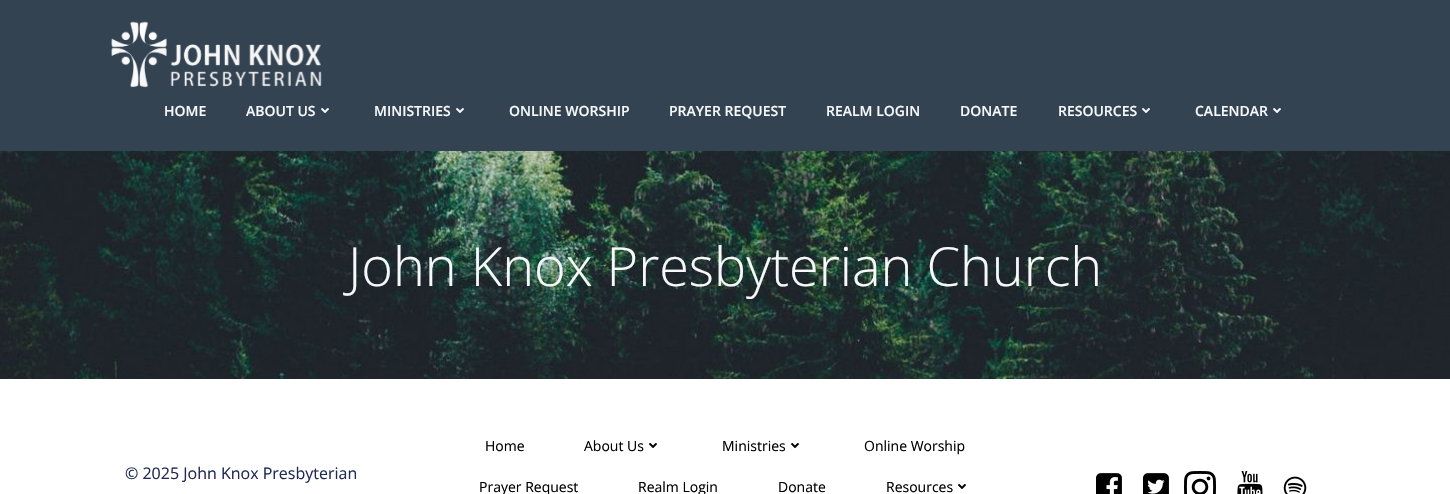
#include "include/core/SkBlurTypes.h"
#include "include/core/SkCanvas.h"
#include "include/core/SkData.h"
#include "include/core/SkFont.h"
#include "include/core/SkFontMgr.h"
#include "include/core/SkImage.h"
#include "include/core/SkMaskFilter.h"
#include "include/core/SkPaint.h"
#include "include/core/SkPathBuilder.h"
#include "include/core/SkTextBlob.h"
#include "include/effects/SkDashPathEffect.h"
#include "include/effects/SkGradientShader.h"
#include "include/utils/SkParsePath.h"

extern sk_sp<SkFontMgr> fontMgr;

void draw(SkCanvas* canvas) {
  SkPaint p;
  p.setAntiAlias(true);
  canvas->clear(SK_ColorWHITE);
  p.setColor(SkColorSetRGB(51, 67, 82));
  canvas->drawRect(SkRect::MakeLTRB(0, 0, 1450, 151), p);
  canvas->drawImageRect(SkImages::DeferredFromEncodedData(SkData::MakeFromFileName("images/1.png")), SkRect::MakeLTRB(111, 21, 322, 88), SkSamplingOptions());
  canvas->drawImageRect(SkImages::DeferredFromEncodedData(SkData::MakeFromFileName("images/2.png")), SkRect::MakeLTRB(321, 108, 329, 113), SkSamplingOptions());
  canvas->drawImageRect(SkImages::DeferredFromEncodedData(SkData::MakeFromFileName("images/2.png")), SkRect::MakeLTRB(456, 108, 464, 113), SkSamplingOptions());
  canvas->drawImageRect(SkImages::DeferredFromEncodedData(SkData::MakeFromFileName("images/2.png")), SkRect::MakeLTRB(1142, 108, 1150, 113), SkSamplingOptions());
  canvas->drawImageRect(SkImages::DeferredFromEncodedData(SkData::MakeFromFileName("images/2.png")), SkRect::MakeLTRB(1273, 108, 1281, 113), SkSamplingOptions());
  canvas->drawImageRect(SkImages::DeferredFromEncodedData(SkData::MakeFromFileName("images/3.png")), SkRect::MakeLTRB(0, 151, 1450, 379), SkSamplingOptions());
  canvas->drawImageRect(SkImages::DeferredFromEncodedData(SkData::MakeFromFileName("images/4.png")), SkRect::MakeLTRB(649, 443, 657, 448), SkSamplingOptions());
  canvas->drawImageRect(SkImages::DeferredFromEncodedData(SkData::MakeFromFileName("images/4.png")), SkRect::MakeLTRB(791, 443, 799, 448), SkSamplingOptions());
  canvas->drawImageRect(SkImages::DeferredFromEncodedData(SkData::MakeFromFileName("images/4.png")), SkRect::MakeLTRB(958, 484, 966, 489), SkSamplingOptions());
  canvas->drawImageRect(SkImages::DeferredFromEncodedData(SkData::MakeFromFileName("images/5.png")), SkRect::MakeLTRB(1096, 473, 1122, 494), SkSamplingOptions());
  canvas->drawImageRect(SkImages::DeferredFromEncodedData(SkData::MakeFromFileName("images/6.png")), SkRect::MakeLTRB(1143, 473, 1169, 494), SkSamplingOptions());
  canvas->drawImageRect(SkImages::DeferredFromEncodedData(SkData::MakeFromFileName("images/7.png")), SkRect::MakeLTRB(1184, 471, 1216, 494), SkSamplingOptions());
  canvas->drawImageRect(SkImages::DeferredFromEncodedData(SkData::MakeFromFileName("images/8.png")), SkRect::MakeLTRB(1237, 471, 1263, 494), SkSamplingOptions());
  canvas->drawImageRect(SkImages::DeferredFromEncodedData(SkData::MakeFromFileName("images/9.png")), SkRect::MakeLTRB(1283, 476, 1307, 494), SkSamplingOptions());
  SkFont font1(fontMgr->matchFamilyStyle("Open Sans", SkFontStyle(600, SkFontStyle::kNormal_Width, SkFontStyle::kUpright_Slant)), 14);
  font1.setSubpixel(true);
  p.setColor(SkColorSetRGB(246, 248, 250));
  canvas->drawString("HOME", 164, 116, font1, p);
  canvas->drawString("ABOUT US", 246, 116, font1, p);
  canvas->drawString("MINISTRIES", 374, 116, font1, p);
  canvas->drawString("ONLINE WORSHIP", 509, 116, font1, p);
  canvas->drawString("PRAYER REQUEST", 669, 116, font1, p);
  canvas->drawString("REALM LOGIN", 826, 116, font1, p);
  canvas->drawString("DONATE", 960, 116, font1, p);
  canvas->drawString("RESOURCES", 1058, 116, font1, p);
  canvas->drawString("CALENDAR", 1195, 116, font1, p);
  SkFont font2(fontMgr->matchFamilyStyle("Open Sans", SkFontStyle(300, SkFontStyle::kNormal_Width, SkFontStyle::kUpright_Slant)), 54);
  font2.setSubpixel(true);
  canvas->drawString("John Knox Presbyterian Church", 348, 286, font2, p);
  SkFont font3(fontMgr->matchFamilyStyle("Open Sans", SkFontStyle::Normal()), 16);
  font3.setSubpixel(true);
  p.setColor(SkColorSetRGB(32, 42, 84));
  canvas->drawString("© 2025 John Knox Presbyterian", 125, 479, font3, p);
  SkFont font4(fontMgr->matchFamilyStyle("Open Sans", SkFontStyle::Normal()), 14);
  font4.setSubpixel(true);
  p.setColor(SK_ColorBLACK);
  canvas->drawString("Home", 485, 451, font4, p);
  canvas->drawString("About Us", 584, 451, font4, p);
  canvas->drawString("Ministries", 722, 451, font4, p);
  canvas->drawString("Online Worship", 864, 451, font4, p);
  canvas->drawString("Prayer Request", 479, 492, font4, p);
  canvas->drawString("Realm Login", 638, 492, font4, p);
  canvas->drawString("Donate", 778, 492, font4, p);
  canvas->drawString("Resources", 886, 492, font4, p);
}
